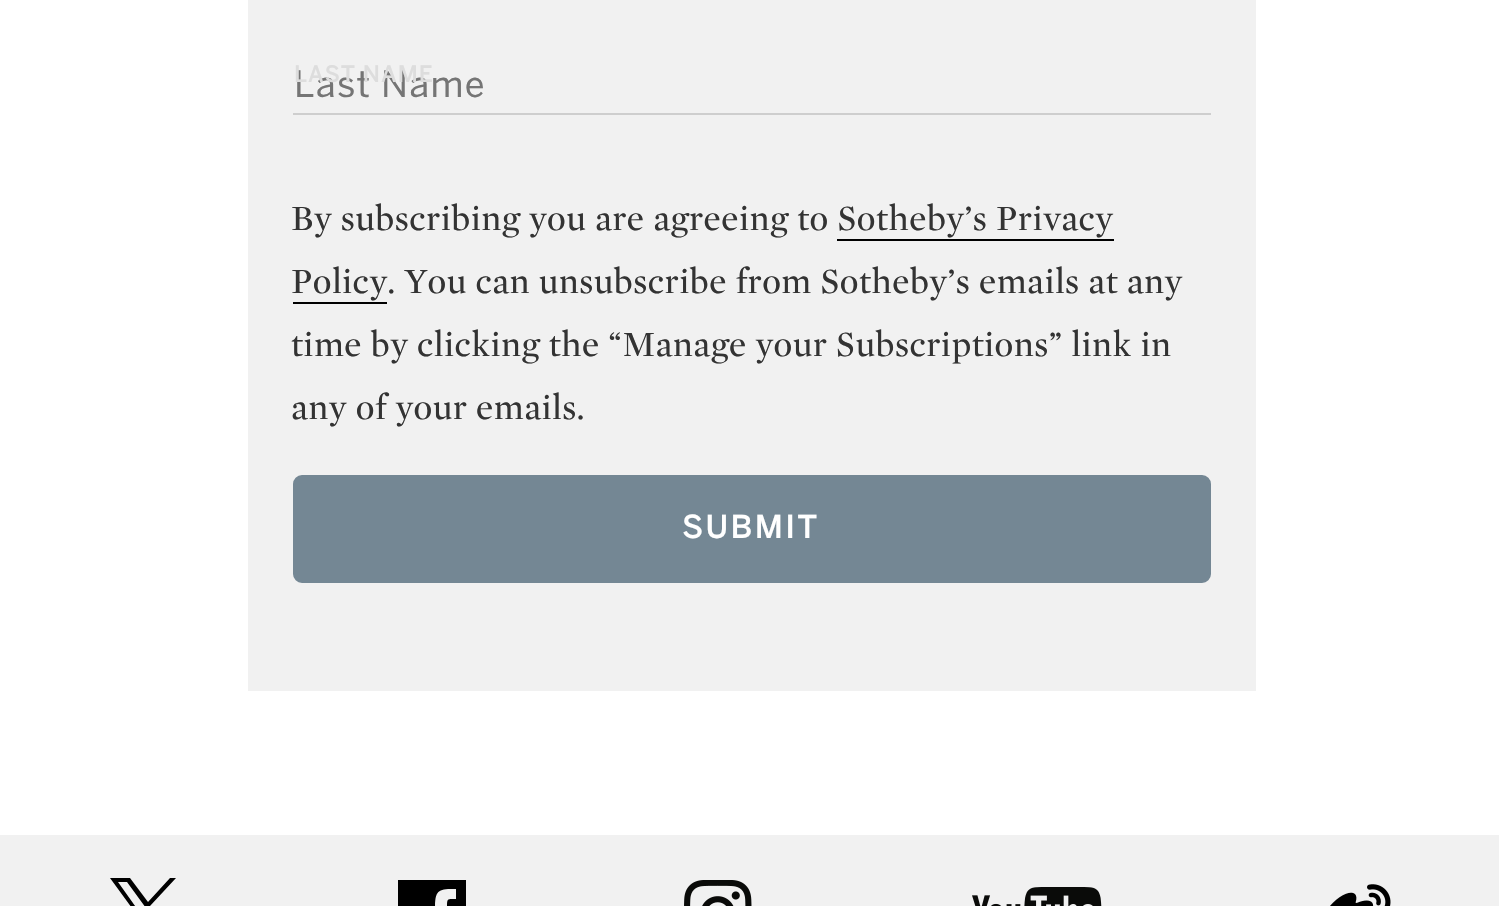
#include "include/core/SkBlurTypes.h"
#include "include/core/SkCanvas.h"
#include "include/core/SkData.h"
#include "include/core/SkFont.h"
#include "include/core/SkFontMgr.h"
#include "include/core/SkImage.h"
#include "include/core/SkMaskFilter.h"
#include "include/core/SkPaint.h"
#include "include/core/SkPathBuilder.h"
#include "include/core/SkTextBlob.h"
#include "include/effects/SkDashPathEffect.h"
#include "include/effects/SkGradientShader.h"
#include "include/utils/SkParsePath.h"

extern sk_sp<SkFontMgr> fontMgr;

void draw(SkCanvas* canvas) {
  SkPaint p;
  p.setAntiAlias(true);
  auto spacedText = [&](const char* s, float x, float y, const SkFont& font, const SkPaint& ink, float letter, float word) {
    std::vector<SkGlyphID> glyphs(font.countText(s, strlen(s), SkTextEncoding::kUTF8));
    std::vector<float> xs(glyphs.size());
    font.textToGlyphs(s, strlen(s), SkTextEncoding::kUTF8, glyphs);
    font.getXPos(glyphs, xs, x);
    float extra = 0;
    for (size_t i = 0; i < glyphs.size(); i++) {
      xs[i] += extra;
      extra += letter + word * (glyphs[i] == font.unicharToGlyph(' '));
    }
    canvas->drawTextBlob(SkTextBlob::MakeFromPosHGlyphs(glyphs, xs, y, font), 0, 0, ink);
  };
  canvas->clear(SK_ColorWHITE);
  p.setColor(SkColorSetRGB(241, 241, 241));
  canvas->drawRect(SkRect::MakeLTRB(248, 0, 1256, 691), p);
  p.setColor(SkColorSetRGB(206, 206, 206));
  canvas->drawRect(SkRect::MakeLTRB(293, 113, 1211, 115), p);
  p.setColor(SK_ColorBLACK);
  canvas->drawRect(SkRect::MakeLTRB(837, 239, 1114, 241), p);
  canvas->drawRect(SkRect::MakeLTRB(293, 302, 387, 304), p);
  p.setColor(SkColorSetRGB(116, 135, 148));
  canvas->drawRoundRect(SkRect::MakeLTRB(294, 476, 1210, 582), 8, 8, p);
  p.setStyle(SkPaint::kStroke_Style);
  p.setStrokeWidth(2);
  canvas->drawRoundRect(SkRect::MakeLTRB(294, 476, 1210, 582), 8, 8, p);
  p.setStyle(SkPaint::kFill_Style);
  p.setColor(SkColorSetRGB(241, 241, 241));
  canvas->drawRect(SkRect::MakeLTRB(0, 835, 1499, 906), p);
  p.setColor(SK_ColorBLACK);
  canvas->drawPath(SkPathBuilder().moveTo(150, 906).lineTo(176, 878).lineTo(170, 878).lineTo(148, 902).lineTo(130, 878).lineTo(110, 878).lineTo(137, 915).lineTo(110, 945).lineTo(116, 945).lineTo(139, 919).lineTo(158, 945).lineTo(178, 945).moveTo(118, 882).lineTo(127, 882).lineTo(170, 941).lineTo(160, 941).detach(), p);
  canvas->drawPath(SkPathBuilder(SkPathFillType::kEvenOdd).moveTo(398, 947).lineTo(466, 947).lineTo(466, 880).lineTo(398, 880).close().moveTo(456, 899).cubicTo(447, 899, 447, 898, 447, 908).lineTo(456, 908).lineTo(455, 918).lineTo(447, 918).lineTo(448, 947).lineTo(435, 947).lineTo(435, 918).lineTo(429, 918).lineTo(429, 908).lineTo(435, 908).cubicTo(435, 889, 439, 889, 456, 889).close().detach(), p);
  canvas->drawImageRect(SkImages::DeferredFromEncodedData(SkData::MakeFromFileName("images/1.png")), SkRect::MakeLTRB(684, 880, 752, 906), SkSamplingOptions());
  canvas->drawImageRect(SkImages::DeferredFromEncodedData(SkData::MakeFromFileName("images/2.png")), SkRect::MakeLTRB(972, 887, 1102, 906), SkSamplingOptions());
  canvas->drawImageRect(SkImages::DeferredFromEncodedData(SkData::MakeFromFileName("images/3.png")), SkRect::MakeLTRB(1330, 884, 1391, 906), SkSamplingOptions());
  SkFont font1(fontMgr->matchFamilyStyle("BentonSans", SkFontStyle::Normal()), 36);
  font1.setSubpixel(true);
  p.setColor(SkColorSetRGB(117, 117, 117));
  spacedText("Last Name", 294, 97, font1, p, 1.25f, 0);
  SkFont font2(fontMgr->matchFamilyStyle("BentonSans", SkFontStyle(500, SkFontStyle::kNormal_Width, SkFontStyle::kUpright_Slant)), 22.5f);
  font2.setSubpixel(true);
  p.setColor(SkColorSetRGB(221, 221, 221));
  spacedText("LAST NAME", 294, 82, font2, p, 1, 0);
  SkFont font3(fontMgr->matchFamilyStyle("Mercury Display", SkFontStyle::Normal()), 36);
  font3.setSubpixel(true);
  p.setColor(SkColorSetRGB(51, 51, 51));
  spacedText("By subscribing you are agreeing to Sotheby’s Privacy", 291, 230, font3, p, 0.45f, 0);
  spacedText("Policy. You can unsubscribe from Sotheby’s emails at any", 291, 293, font3, p, 0.45f, 0);
  spacedText("time by clicking the “Manage your Subscriptions” link in", 291, 356, font3, p, 0.45f, 0);
  spacedText("any of your emails.", 291, 419, font3, p, 0.45f, 0);
  SkFont font4(fontMgr->matchFamilyStyle("BentonSans", SkFontStyle(500, SkFontStyle::kNormal_Width, SkFontStyle::kUpright_Slant)), 31.5f);
  font4.setSubpixel(true);
  p.setColor(SK_ColorWHITE);
  spacedText("SUBMIT", 682, 538, font4, p, 2.25f, 0);
}
